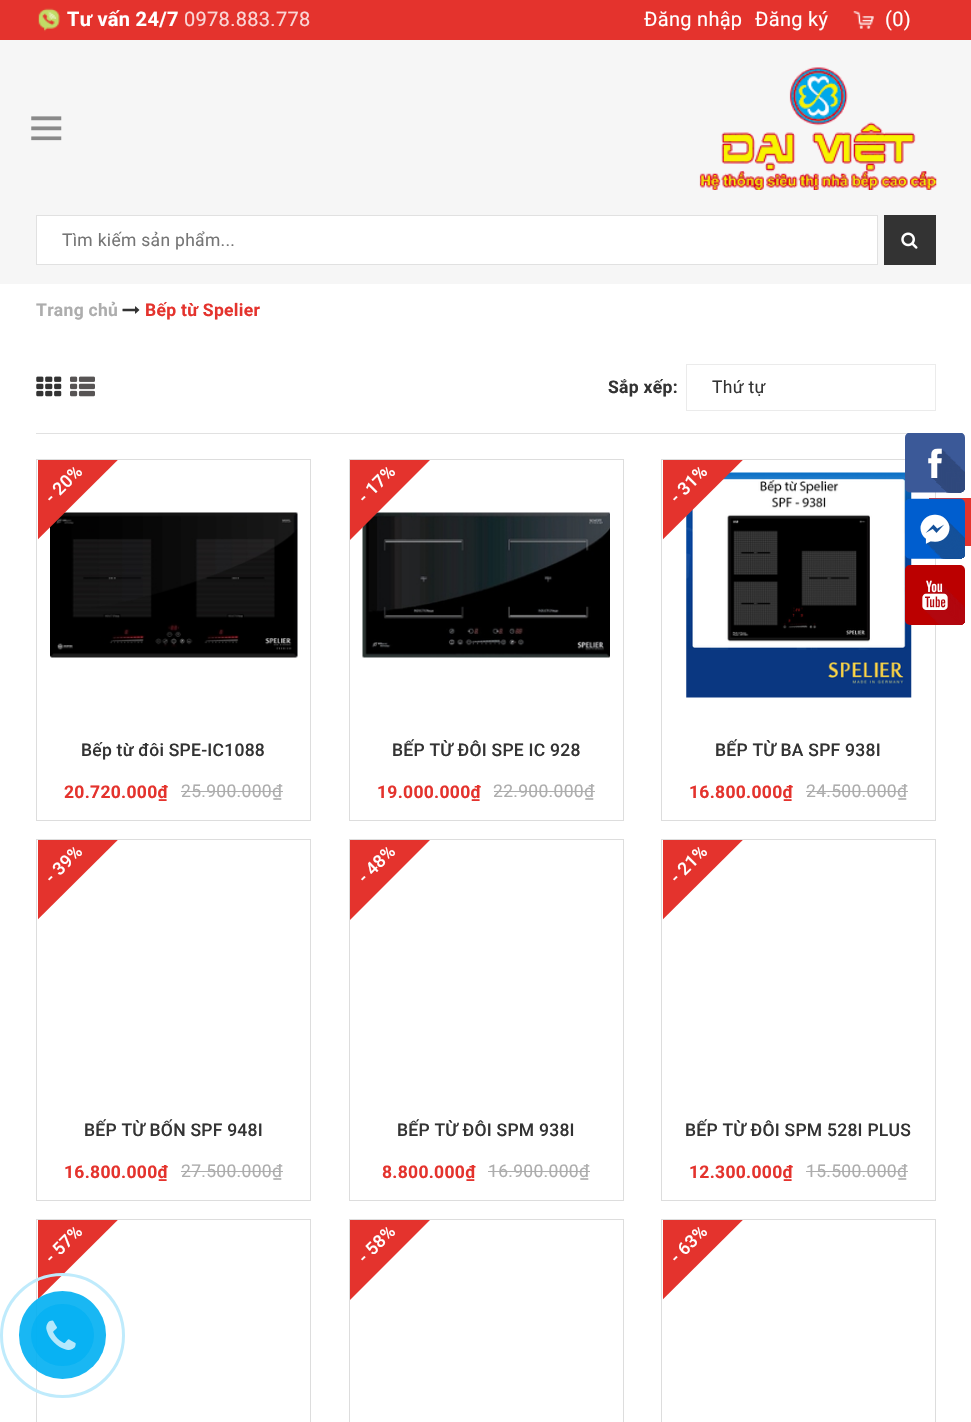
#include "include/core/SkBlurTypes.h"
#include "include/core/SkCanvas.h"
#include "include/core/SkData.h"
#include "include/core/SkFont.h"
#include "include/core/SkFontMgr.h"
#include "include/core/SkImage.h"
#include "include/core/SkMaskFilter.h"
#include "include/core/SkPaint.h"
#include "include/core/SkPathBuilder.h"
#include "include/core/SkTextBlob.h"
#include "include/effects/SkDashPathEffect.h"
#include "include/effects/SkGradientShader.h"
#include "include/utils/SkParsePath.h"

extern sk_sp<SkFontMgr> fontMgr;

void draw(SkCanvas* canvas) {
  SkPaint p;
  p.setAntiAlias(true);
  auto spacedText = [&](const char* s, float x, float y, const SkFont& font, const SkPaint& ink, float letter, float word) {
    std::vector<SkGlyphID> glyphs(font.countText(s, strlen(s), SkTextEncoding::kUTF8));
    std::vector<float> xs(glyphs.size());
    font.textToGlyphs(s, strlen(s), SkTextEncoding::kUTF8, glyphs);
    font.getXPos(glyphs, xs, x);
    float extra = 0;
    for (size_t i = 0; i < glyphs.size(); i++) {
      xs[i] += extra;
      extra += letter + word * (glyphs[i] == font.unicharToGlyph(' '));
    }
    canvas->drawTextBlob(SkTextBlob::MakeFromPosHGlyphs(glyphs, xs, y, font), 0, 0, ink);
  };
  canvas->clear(SK_ColorWHITE);
  p.setColor(SkColorSetRGB(246, 246, 246));
  canvas->drawRect(SkRect::MakeLTRB(0, 40, 971, 284), p);
  p.setColor(SkColorSetRGB(228, 51, 45));
  canvas->drawRect(SkRect::MakeLTRB(0, 0, 971, 40), p);
  canvas->drawImageRect(SkImages::DeferredFromEncodedData(SkData::MakeFromFileName("images/1.png")), SkRect::MakeLTRB(38, 8, 60, 32), SkSamplingOptions());
  canvas->drawImageRect(SkImages::DeferredFromEncodedData(SkData::MakeFromFileName("images/2.png")), SkRect::MakeLTRB(853, 11, 874, 29), SkSamplingOptions());
  canvas->drawImageRect(SkImages::DeferredFromEncodedData(SkData::MakeFromFileName("images/3.png")), SkRect::MakeLTRB(31, 116, 62, 141), SkSamplingOptions());
  canvas->drawImageRect(SkImages::DeferredFromEncodedData(SkData::MakeFromFileName("images/4.png")), SkRect::MakeLTRB(699, 67, 937, 190), SkSamplingOptions());
  p.setColor(SK_ColorWHITE);
  canvas->drawRect(SkRect::MakeLTRB(36.5f, 215.5f, 877.5f, 264.5f), p);
  p.setStyle(SkPaint::kStroke_Style);
  p.setStrokeWidth(1);
  p.setColor(SkColorSetRGB(225, 225, 225));
  canvas->drawRect(SkRect::MakeLTRB(36.5f, 215.5f, 877.5f, 264.5f), p);
  p.setStyle(SkPaint::kFill_Style);
  p.setColor(SkColorSetRGB(51, 51, 51));
  canvas->drawRect(SkRect::MakeLTRB(884, 215, 936, 265), p);
  canvas->drawImageRect(SkImages::DeferredFromEncodedData(SkData::MakeFromFileName("images/5.png")), SkRect::MakeLTRB(901, 232, 918, 249), SkSamplingOptions());
  canvas->drawImageRect(SkImages::DeferredFromEncodedData(SkData::MakeFromFileName("images/6.png")), SkRect::MakeLTRB(122, 306, 140, 314), SkSamplingOptions());
  p.setColor(SkColorSetRGB(225, 225, 225));
  canvas->drawRect(SkRect::MakeLTRB(36, 433, 908, 434), p);
  canvas->drawImageRect(SkImages::DeferredFromEncodedData(SkData::MakeFromFileName("images/7.png")), SkRect::MakeLTRB(36, 376, 62, 397), SkSamplingOptions());
  canvas->drawImageRect(SkImages::DeferredFromEncodedData(SkData::MakeFromFileName("images/8.png")), SkRect::MakeLTRB(70, 376, 95, 397), SkSamplingOptions());
  p.setStyle(SkPaint::kStroke_Style);
  p.setColor(SkColorSetRGB(235, 235, 235));
  canvas->drawRect(SkRect::MakeLTRB(686.5f, 364.5f, 935.5f, 410.5f), p);
  p.setColor(SkColorSetRGB(221, 221, 221));
  canvas->drawRect(SkRect::MakeLTRB(36.5f, 459.5f, 310.5f, 820.5f), p);
  canvas->drawImageRect(SkImages::DeferredFromEncodedData(SkData::MakeFromFileName("images/9.png")), SkRect::MakeLTRB(50, 512, 298, 658), SkSamplingOptions());
  canvas->save();
  canvas->clipRect(SkRect::MakeLTRB(38, 460, 310, 820));
  p.setStyle(SkPaint::kFill_Style);
  p.setColor(SkColorSetRGB(228, 51, 45));
  canvas->drawPath(SkPathBuilder().moveTo(-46, 507).lineTo(86, 374).lineTo(145, 433).lineTo(12, 565).close().detach(), p);
  canvas->restore();
  p.setColor(SkColorSetRGB(173, 173, 173));
  canvas->drawRect(SkRect::MakeLTRB(181, 791, 283, 792), p);
  p.setStyle(SkPaint::kStroke_Style);
  p.setColor(SkColorSetRGB(221, 221, 221));
  canvas->drawRect(SkRect::MakeLTRB(349.5f, 459.5f, 623.5f, 820.5f), p);
  canvas->drawImageRect(SkImages::DeferredFromEncodedData(SkData::MakeFromFileName("images/10.png")), SkRect::MakeLTRB(362, 512, 610, 658), SkSamplingOptions());
  canvas->save();
  canvas->clipRect(SkRect::MakeLTRB(350, 460, 623, 820));
  p.setStyle(SkPaint::kFill_Style);
  p.setColor(SkColorSetRGB(228, 51, 45));
  canvas->drawPath(SkPathBuilder().moveTo(266, 507).lineTo(399, 374).lineTo(457, 433).lineTo(325, 565).close().detach(), p);
  canvas->restore();
  p.setColor(SkColorSetRGB(173, 173, 173));
  canvas->drawRect(SkRect::MakeLTRB(494, 791, 595, 792), p);
  p.setStyle(SkPaint::kStroke_Style);
  p.setColor(SkColorSetRGB(221, 221, 221));
  canvas->drawRect(SkRect::MakeLTRB(661.5f, 459.5f, 935.5f, 820.5f), p);
  canvas->drawImageRect(SkImages::DeferredFromEncodedData(SkData::MakeFromFileName("images/11.png")), SkRect::MakeLTRB(686, 472, 912, 698), SkSamplingOptions());
  canvas->save();
  canvas->clipRect(SkRect::MakeLTRB(663, 460, 935, 820));
  p.setStyle(SkPaint::kFill_Style);
  p.setColor(SkColorSetRGB(228, 51, 45));
  canvas->drawPath(SkPathBuilder().moveTo(579, 507).lineTo(711, 374).lineTo(770, 433).lineTo(637, 565).close().detach(), p);
  canvas->restore();
  p.setColor(SkColorSetRGB(173, 173, 173));
  canvas->drawRect(SkRect::MakeLTRB(806, 791, 908, 792), p);
  p.setStyle(SkPaint::kStroke_Style);
  p.setColor(SkColorSetRGB(221, 221, 221));
  canvas->drawRect(SkRect::MakeLTRB(36.5f, 839.5f, 310.5f, 1200.5f), p);
  canvas->save();
  canvas->clipRect(SkRect::MakeLTRB(38, 840, 310, 1200));
  p.setStyle(SkPaint::kFill_Style);
  p.setColor(SkColorSetRGB(228, 51, 45));
  canvas->drawPath(SkPathBuilder().moveTo(-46, 887).lineTo(86, 754).lineTo(145, 813).lineTo(12, 945).close().detach(), p);
  canvas->restore();
  p.setColor(SkColorSetRGB(173, 173, 173));
  canvas->drawRect(SkRect::MakeLTRB(181, 1171, 283, 1172), p);
  p.setStyle(SkPaint::kStroke_Style);
  p.setColor(SkColorSetRGB(221, 221, 221));
  canvas->drawRect(SkRect::MakeLTRB(349.5f, 839.5f, 623.5f, 1200.5f), p);
  canvas->save();
  canvas->clipRect(SkRect::MakeLTRB(350, 840, 623, 1200));
  p.setStyle(SkPaint::kFill_Style);
  p.setColor(SkColorSetRGB(228, 51, 45));
  canvas->drawPath(SkPathBuilder().moveTo(266, 887).lineTo(399, 754).lineTo(457, 813).lineTo(325, 945).close().detach(), p);
  canvas->restore();
  p.setColor(SkColorSetRGB(173, 173, 173));
  canvas->drawRect(SkRect::MakeLTRB(488, 1171, 590, 1172), p);
  p.setStyle(SkPaint::kStroke_Style);
  p.setColor(SkColorSetRGB(221, 221, 221));
  canvas->drawRect(SkRect::MakeLTRB(661.5f, 839.5f, 935.5f, 1200.5f), p);
  canvas->save();
  canvas->clipRect(SkRect::MakeLTRB(663, 840, 935, 1200));
  p.setStyle(SkPaint::kFill_Style);
  p.setColor(SkColorSetRGB(228, 51, 45));
  canvas->drawPath(SkPathBuilder().moveTo(579, 887).lineTo(711, 754).lineTo(770, 813).lineTo(637, 945).close().detach(), p);
  canvas->restore();
  p.setColor(SkColorSetRGB(173, 173, 173));
  canvas->drawRect(SkRect::MakeLTRB(806, 1171, 908, 1172), p);
  p.setStyle(SkPaint::kStroke_Style);
  p.setColor(SkColorSetRGB(221, 221, 221));
  canvas->drawRect(SkRect::MakeLTRB(36.5f, 1219.5f, 310.5f, 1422.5f), p);
  canvas->save();
  canvas->clipRect(SkRect::MakeLTRB(38, 1220, 310, 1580));
  p.setStyle(SkPaint::kFill_Style);
  p.setColor(SkColorSetRGB(228, 51, 45));
  canvas->drawPath(SkPathBuilder().moveTo(-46, 1267).lineTo(86, 1134).lineTo(145, 1193).lineTo(12, 1325).close().detach(), p);
  canvas->restore();
  p.setStyle(SkPaint::kStroke_Style);
  p.setColor(SkColorSetRGB(221, 221, 221));
  canvas->drawRect(SkRect::MakeLTRB(349.5f, 1219.5f, 623.5f, 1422.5f), p);
  canvas->save();
  canvas->clipRect(SkRect::MakeLTRB(350, 1220, 623, 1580));
  p.setStyle(SkPaint::kFill_Style);
  p.setColor(SkColorSetRGB(228, 51, 45));
  canvas->drawPath(SkPathBuilder().moveTo(266, 1267).lineTo(399, 1134).lineTo(457, 1193).lineTo(325, 1325).close().detach(), p);
  canvas->restore();
  p.setStyle(SkPaint::kStroke_Style);
  p.setColor(SkColorSetRGB(221, 221, 221));
  canvas->drawRect(SkRect::MakeLTRB(661.5f, 1219.5f, 935.5f, 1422.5f), p);
  canvas->save();
  canvas->clipRect(SkRect::MakeLTRB(663, 1220, 935, 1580));
  p.setStyle(SkPaint::kFill_Style);
  p.setColor(SkColorSetRGB(228, 51, 45));
  canvas->drawPath(SkPathBuilder().moveTo(579, 1267).lineTo(711, 1134).lineTo(770, 1193).lineTo(637, 1325).close().detach(), p);
  canvas->restore();
  canvas->drawRect(SkRect::MakeLTRB(929, 498, 971, 546), p);
  canvas->drawImageRect(SkImages::DeferredFromEncodedData(SkData::MakeFromFileName("images/12.png")), SkRect::MakeLTRB(905, 433, 965, 625), SkSamplingOptions());
  p.setStyle(SkPaint::kStroke_Style);
  p.setStrokeWidth(3);
  p.setColor(SkColorSetRGB(191, 235, 252));
  canvas->drawCircle(62.5f, 1335.5f, 61, p);
  p.setStyle(SkPaint::kFill_Style);
  p.setColor(SkColorSetARGB(230, 0, 175, 242));
  canvas->drawRoundRect(SkRect::MakeLTRB(19, 1291, 106, 1379), 43.5f, 43.5f, p);
  p.setColor(SkColorSetARGB(179, 0, 175, 242));
  canvas->drawRoundRect(SkRect::MakeLTRB(31, 1304, 94, 1366), 31, 31, p);
  canvas->drawImageRect(SkImages::DeferredFromEncodedData(SkData::MakeFromFileName("images/13.png")), SkRect::MakeLTRB(46, 1320, 76, 1350), SkSamplingOptions());
  SkFont font1(fontMgr->matchFamilyStyle("Roboto", SkFontStyle::Bold()), 20);
  font1.setSubpixel(true);
  p.setColor(SK_ColorWHITE);
  spacedText("Tư vấn 24/7", 67, 26, font1, p, 0.3f, 0);
  SkFont font2(fontMgr->matchFamilyStyle("Roboto", SkFontStyle::Normal()), 20);
  font2.setSubpixel(true);
  p.setColor(SkColorSetRGB(250, 214, 213));
  spacedText("0978.883.778", 184, 26, font2, p, 0.3f, 0);
  p.setColor(SK_ColorWHITE);
  spacedText("Đăng nhập", 644, 26, font2, p, 0.3f, 0);
  spacedText("Đăng ký", 755, 26, font2, p, 0.3f, 0);
  spacedText("(0)", 885, 26, font2, p, 0.3f, 0);
  SkFont font3(fontMgr->matchFamilyStyle("Roboto", SkFontStyle::Normal()), 17.5f);
  font3.setSubpixel(true);
  p.setColor(SkColorSetRGB(117, 117, 117));
  spacedText("Tìm kiếm sản phẩm...", 62, 246, font3, p, 0.3f, 0);
  SkFont font4(fontMgr->matchFamilyStyle("Roboto", SkFontStyle::Bold()), 17.5f);
  font4.setSubpixel(true);
  p.setColor(SkColorSetRGB(173, 173, 173));
  spacedText("Trang chủ", 36, 316, font4, p, 0.3f, 0);
  p.setColor(SkColorSetRGB(228, 51, 45));
  spacedText("Bếp từ Spelier", 145, 316, font4, p, 0.3f, 0);
  p.setColor(SkColorSetRGB(51, 51, 51));
  spacedText("Sắp xếp:", 608, 393, font4, p, 0.3f, 0);
  spacedText("Thứ tự", 712, 393, font3, p, 0.3f, 0);
  SkFont font5(fontMgr->matchFamilyStyle("Roboto", SkFontStyle(500, SkFontStyle::kNormal_Width, SkFontStyle::kUpright_Slant)), 17.5f);
  font5.setSubpixel(true);
  p.setColor(SK_ColorWHITE);
  canvas->save();
  canvas->rotate(-45, 52, 504);
  spacedText("- 20%", 52, 504, font5, p, 0.3f, 0);
  canvas->restore();
  p.setColor(SkColorSetRGB(51, 51, 51));
  spacedText("Bếp từ đôi SPE-IC1088", 81, 756, font5, p, 0.25f, 0);
  p.setColor(SkColorSetRGB(228, 51, 45));
  spacedText("20.720.000₫", 64, 798, font4, p, 0.3f, 0);
  p.setColor(SkColorSetRGB(173, 173, 173));
  spacedText("25.900.000₫", 181, 797, font3, p, 0.3f, 0);
  p.setColor(SK_ColorWHITE);
  canvas->save();
  canvas->rotate(-45, 365, 504);
  spacedText("- 17%", 365, 504, font5, p, 0.3f, 0);
  canvas->restore();
  p.setColor(SkColorSetRGB(51, 51, 51));
  spacedText("BẾP TỪ ĐÔI SPE IC 928", 392, 756, font5, p, 0.25f, 0);
  p.setColor(SkColorSetRGB(228, 51, 45));
  spacedText("19.000.000₫", 377, 798, font4, p, 0.3f, 0);
  p.setColor(SkColorSetRGB(173, 173, 173));
  spacedText("22.900.000₫", 493, 797, font3, p, 0.3f, 0);
  p.setColor(SK_ColorWHITE);
  canvas->save();
  canvas->rotate(-45, 677, 504);
  spacedText("- 31%", 677, 504, font5, p, 0.3f, 0);
  canvas->restore();
  p.setColor(SkColorSetRGB(51, 51, 51));
  spacedText("BẾP TỪ BA SPF 938I", 715, 756, font5, p, 0.25f, 0);
  p.setColor(SkColorSetRGB(228, 51, 45));
  spacedText("16.800.000₫", 689, 798, font4, p, 0.3f, 0);
  p.setColor(SkColorSetRGB(173, 173, 173));
  spacedText("24.500.000₫", 806, 797, font3, p, 0.3f, 0);
  p.setColor(SK_ColorWHITE);
  canvas->save();
  canvas->rotate(-45, 52, 884);
  spacedText("- 39%", 52, 884, font5, p, 0.3f, 0);
  canvas->restore();
  p.setColor(SkColorSetRGB(51, 51, 51));
  spacedText("BẾP TỪ BỐN SPF 948I", 84, 1136, font5, p, 0.25f, 0);
  p.setColor(SkColorSetRGB(228, 51, 45));
  spacedText("16.800.000₫", 64, 1178, font4, p, 0.3f, 0);
  p.setColor(SkColorSetRGB(173, 173, 173));
  spacedText("27.500.000₫", 181, 1177, font3, p, 0.3f, 0);
  p.setColor(SK_ColorWHITE);
  canvas->save();
  canvas->rotate(-45, 365, 884);
  spacedText("- 48%", 365, 884, font5, p, 0.3f, 0);
  canvas->restore();
  p.setColor(SkColorSetRGB(51, 51, 51));
  spacedText("BẾP TỪ ĐÔI SPM 938I", 397, 1136, font5, p, 0.25f, 0);
  p.setColor(SkColorSetRGB(228, 51, 45));
  spacedText("8.800.000₫", 382, 1178, font4, p, 0.3f, 0);
  p.setColor(SkColorSetRGB(173, 173, 173));
  spacedText("16.900.000₫", 488, 1177, font3, p, 0.3f, 0);
  p.setColor(SK_ColorWHITE);
  canvas->save();
  canvas->rotate(-45, 677, 884);
  spacedText("- 21%", 677, 884, font5, p, 0.3f, 0);
  canvas->restore();
  p.setColor(SkColorSetRGB(51, 51, 51));
  spacedText("BẾP TỪ ĐÔI SPM 528I PLUS", 685, 1136, font5, p, 0.25f, 0);
  p.setColor(SkColorSetRGB(228, 51, 45));
  spacedText("12.300.000₫", 689, 1178, font4, p, 0.3f, 0);
  p.setColor(SkColorSetRGB(173, 173, 173));
  spacedText("15.500.000₫", 806, 1177, font3, p, 0.3f, 0);
  p.setColor(SK_ColorWHITE);
  canvas->save();
  canvas->rotate(-45, 52, 1264);
  spacedText("- 57%", 52, 1264, font5, p, 0.3f, 0);
  canvas->restore();
  canvas->save();
  canvas->rotate(-45, 365, 1264);
  spacedText("- 58%", 365, 1264, font5, p, 0.3f, 0);
  canvas->restore();
  canvas->save();
  canvas->rotate(-45, 677, 1264);
  spacedText("- 63%", 677, 1264, font5, p, 0.3f, 0);
  canvas->restore();
}
